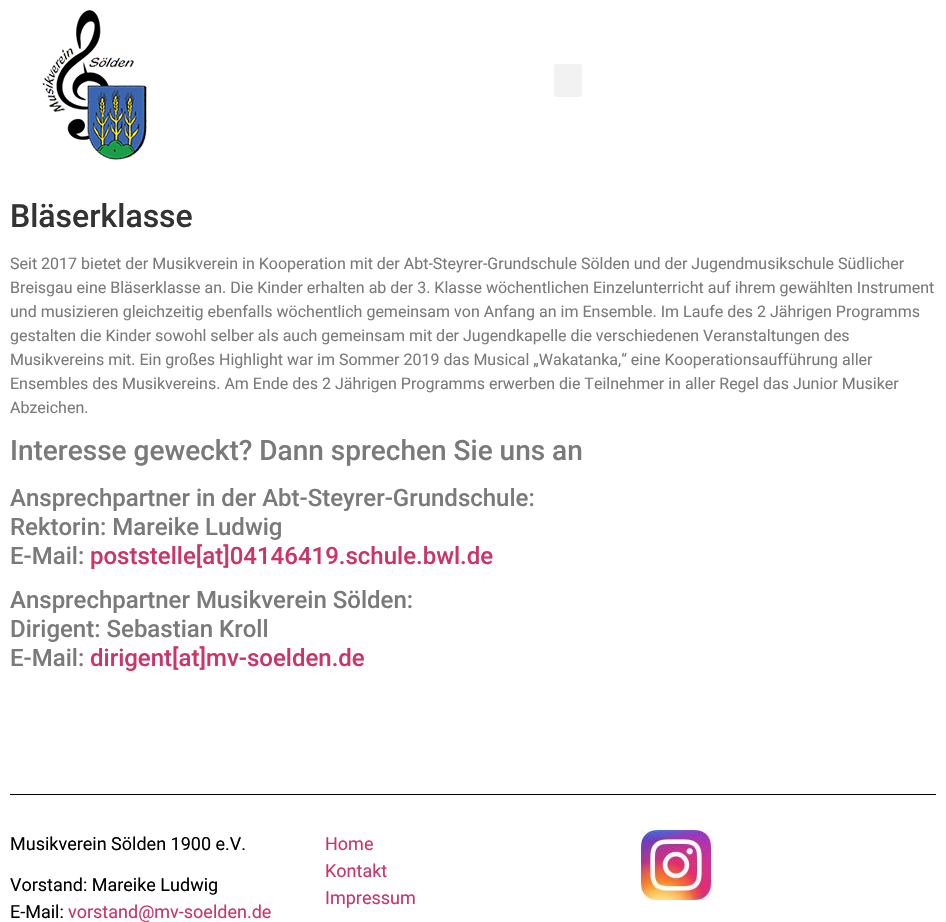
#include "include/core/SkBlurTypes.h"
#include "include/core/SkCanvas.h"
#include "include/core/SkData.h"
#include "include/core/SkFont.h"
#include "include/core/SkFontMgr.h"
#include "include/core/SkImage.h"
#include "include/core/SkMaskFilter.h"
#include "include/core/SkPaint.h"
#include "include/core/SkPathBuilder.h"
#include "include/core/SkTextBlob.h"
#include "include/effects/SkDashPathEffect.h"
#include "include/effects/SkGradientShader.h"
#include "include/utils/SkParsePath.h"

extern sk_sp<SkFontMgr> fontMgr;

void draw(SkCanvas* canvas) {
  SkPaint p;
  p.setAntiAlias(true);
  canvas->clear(SK_ColorWHITE);
  canvas->drawImageRect(SkImages::DeferredFromEncodedData(SkData::MakeFromFileName("images/1.png")), SkRect::MakeLTRB(42, 10, 147, 160), SkSamplingOptions());
  p.setColor(SkColorSetRGB(242, 242, 242));
  canvas->drawRoundRect(SkRect::MakeLTRB(554, 64, 582, 97), 3, 3, p);
  p.setColor(SK_ColorBLACK);
  canvas->drawRect(SkRect::MakeLTRB(10, 794, 936, 795), p);
  canvas->drawImageRect(SkImages::DeferredFromEncodedData(SkData::MakeFromFileName("images/2.png")), SkRect::MakeLTRB(641, 830, 711, 900), SkSamplingOptions());
  SkFont font1(fontMgr->matchFamilyStyle("Roboto", SkFontStyle(500, SkFontStyle::kNormal_Width, SkFontStyle::kUpright_Slant)), 32);
  font1.setSubpixel(true);
  p.setColor(SkColorSetRGB(51, 51, 51));
  canvas->drawString("Bläserklasse", 10, 227, font1, p);
  SkFont font2(fontMgr->matchFamilyStyle("Roboto", SkFontStyle::Normal()), 16);
  font2.setSubpixel(true);
  p.setColor(SkColorSetRGB(122, 122, 122));
  canvas->drawString("Seit 2017 bietet der Musikverein in Kooperation mit der Abt-Steyrer-Grundschule Sölden und der Jugendmusikschule Südlicher", 10, 269, font2, p);
  canvas->drawString("Breisgau eine Bläserklasse an. Die Kinder erhalten ab der 3. Klasse wöchentlichen Einzelunterricht auf ihrem gewählten Instrument", 10, 293, font2, p);
  canvas->drawString("und musizieren gleichzeitig ebenfalls wöchentlich gemeinsam von Anfang an im Ensemble. Im Laufe des 2 Jährigen Programms", 10, 317, font2, p);
  canvas->drawString("gestalten die Kinder sowohl selber als auch gemeinsam mit der Jugendkapelle die verschiedenen Veranstaltungen des", 10, 341, font2, p);
  canvas->drawString("Musikvereins mit. Ein großes Highlight war im Sommer 2019 das Musical „Wakatanka,“ eine Kooperationsaufführung aller", 10, 365, font2, p);
  canvas->drawString("Ensembles des Musikvereins. Am Ende des 2 Jährigen Programms erwerben die Teilnehmer in aller Regel das Junior Musiker", 10, 389, font2, p);
  canvas->drawString("Abzeichen.", 10, 413, font2, p);
  SkFont font3(fontMgr->matchFamilyStyle("Roboto", SkFontStyle(500, SkFontStyle::kNormal_Width, SkFontStyle::kUpright_Slant)), 28);
  font3.setSubpixel(true);
  canvas->drawString("Interesse geweckt? Dann sprechen Sie uns an", 10, 460, font3, p);
  SkFont font4(fontMgr->matchFamilyStyle("Roboto", SkFontStyle(500, SkFontStyle::kNormal_Width, SkFontStyle::kUpright_Slant)), 24);
  font4.setSubpixel(true);
  canvas->drawString("Ansprechpartner in der Abt-Steyrer-Grundschule:", 10, 506, font4, p);
  canvas->drawString("Rektorin: Mareike Ludwig", 10, 535, font4, p);
  canvas->drawString("E-Mail:", 10, 564, font4, p);
  p.setColor(SkColorSetRGB(204, 51, 102));
  canvas->drawString("poststelle[at]04146419.schule.bwl.de", 90, 564, font4, p);
  p.setColor(SkColorSetRGB(122, 122, 122));
  canvas->drawString("Ansprechpartner Musikverein Sölden:", 10, 608, font4, p);
  canvas->drawString("Dirigent: Sebastian Kroll", 10, 637, font4, p);
  canvas->drawString("E-Mail:", 10, 666, font4, p);
  p.setColor(SkColorSetRGB(204, 51, 102));
  canvas->drawString("dirigent[at]mv-soelden.de", 90, 666, font4, p);
  SkFont font5(fontMgr->matchFamilyStyle("Roboto", SkFontStyle::Normal()), 18);
  font5.setSubpixel(true);
  p.setColor(SK_ColorBLACK);
  canvas->drawString("Musikverein Sölden 1900 e.V.", 10, 850, font5, p);
  canvas->drawString("Vorstand: Mareike Ludwig", 10, 891, font5, p);
  canvas->drawString("E-Mail:", 10, 918, font5, p);
  p.setColor(SkColorSetRGB(204, 51, 102));
  canvas->drawString("vorstand@mv-soelden.de", 68, 918, font5, p);
  canvas->drawString("Home", 325, 850, font5, p);
  canvas->drawString("Kontakt", 325, 877, font5, p);
  canvas->drawString("Impressum", 325, 904, font5, p);
}
